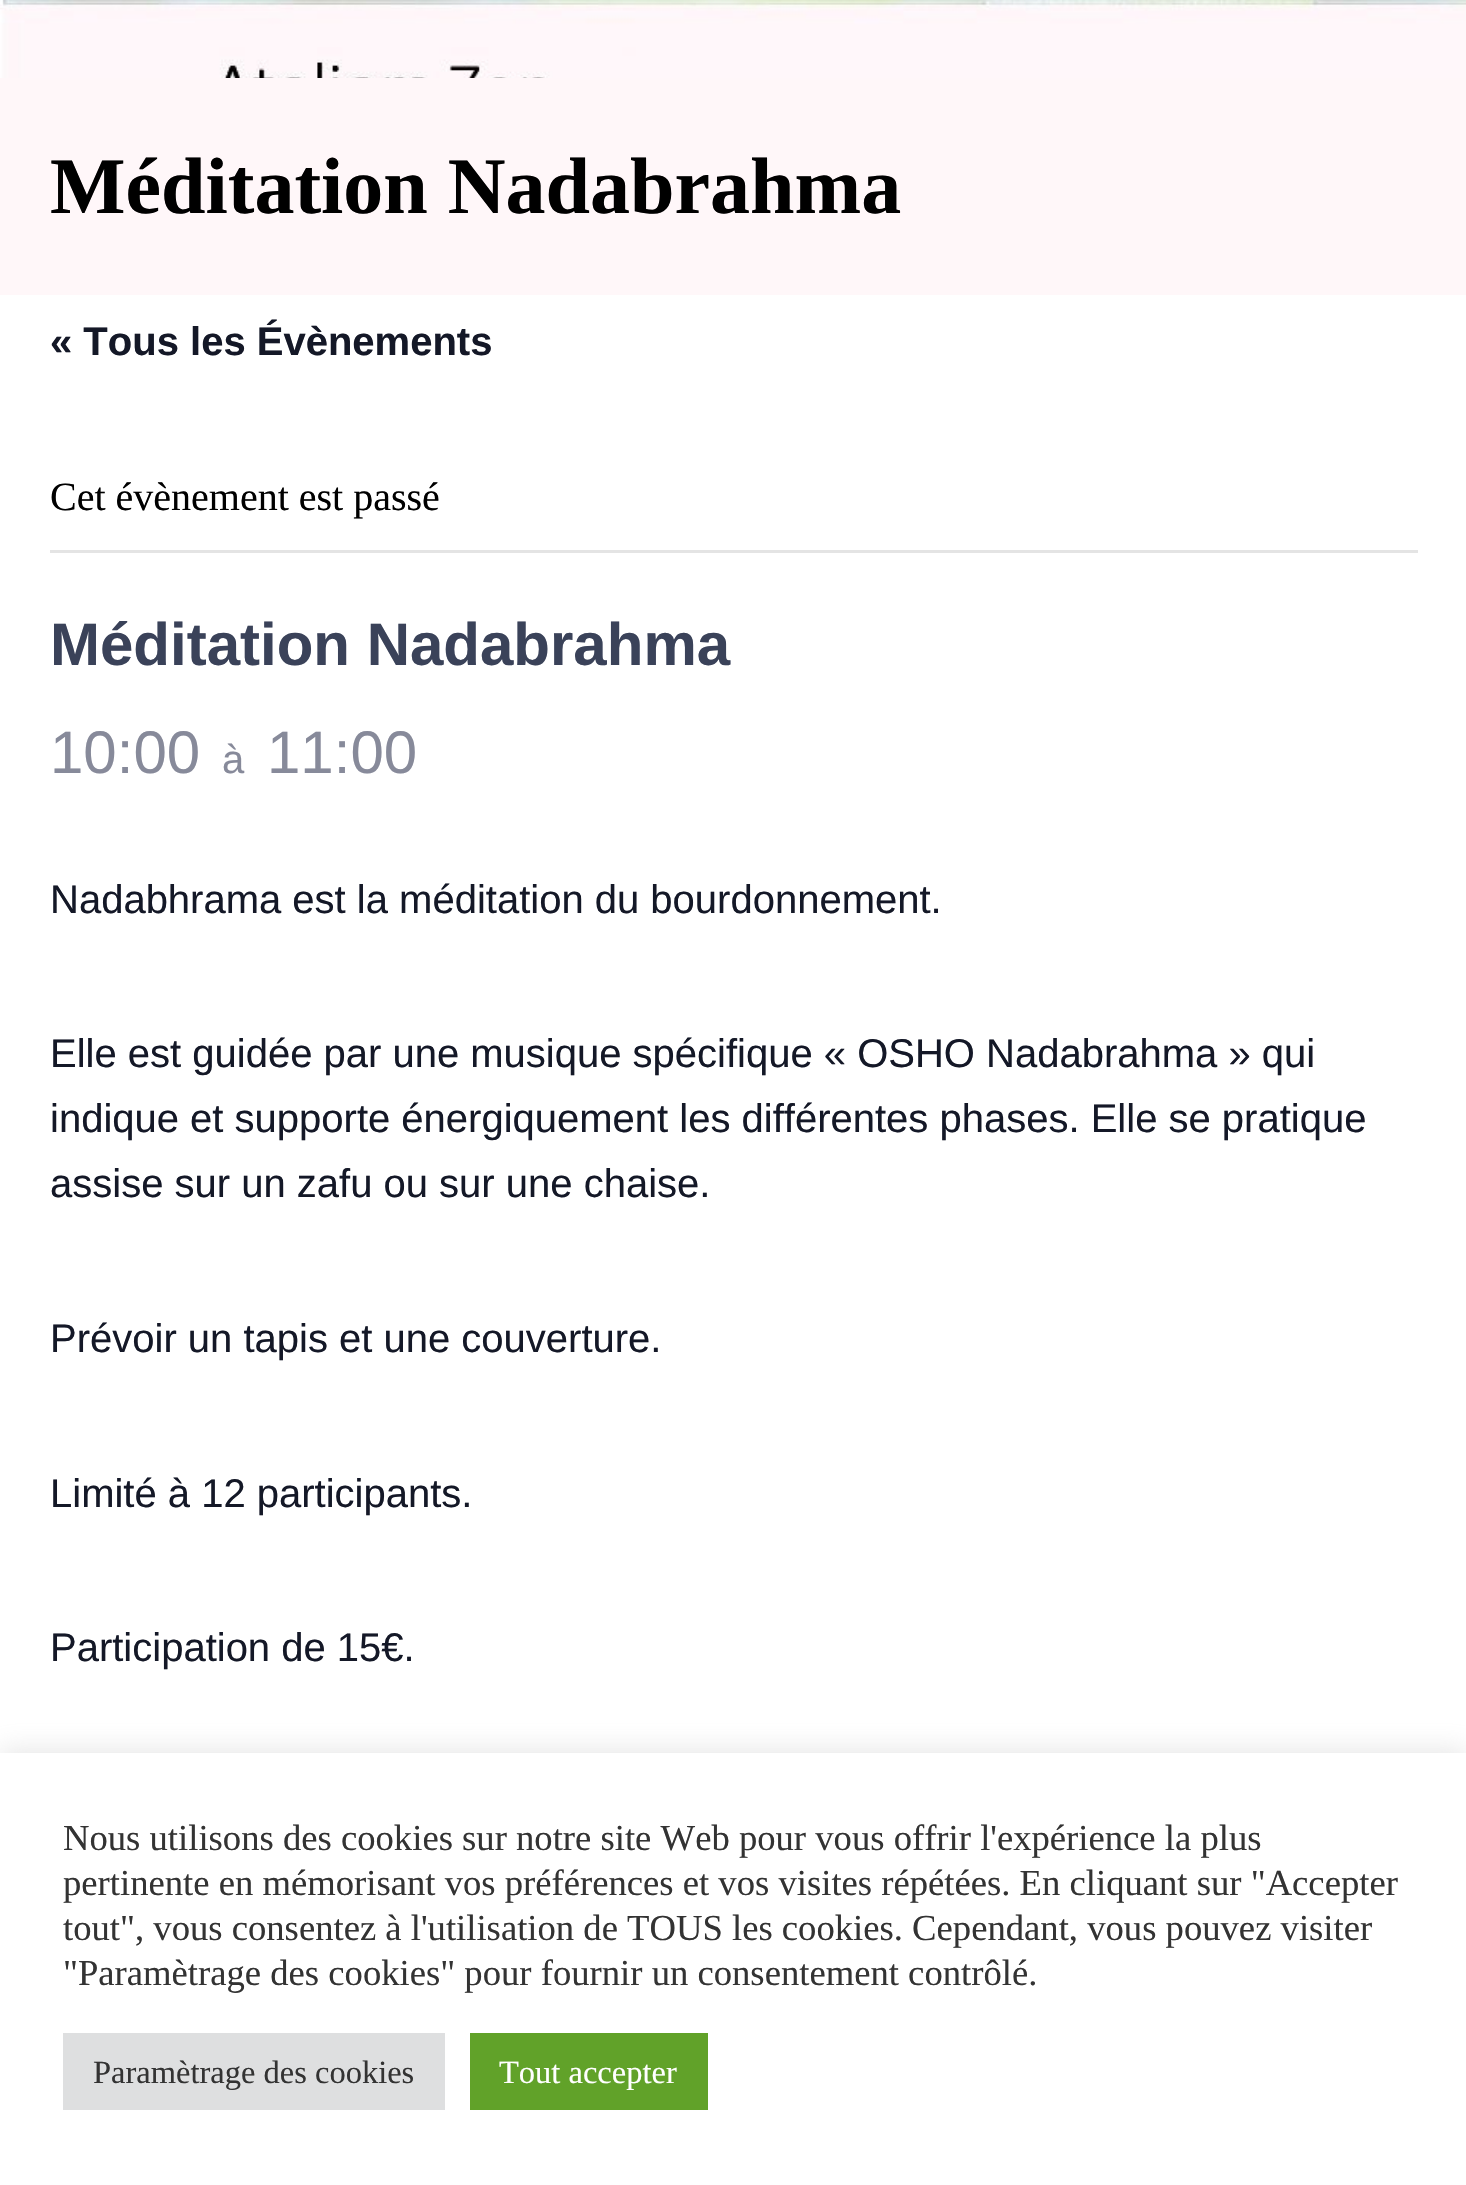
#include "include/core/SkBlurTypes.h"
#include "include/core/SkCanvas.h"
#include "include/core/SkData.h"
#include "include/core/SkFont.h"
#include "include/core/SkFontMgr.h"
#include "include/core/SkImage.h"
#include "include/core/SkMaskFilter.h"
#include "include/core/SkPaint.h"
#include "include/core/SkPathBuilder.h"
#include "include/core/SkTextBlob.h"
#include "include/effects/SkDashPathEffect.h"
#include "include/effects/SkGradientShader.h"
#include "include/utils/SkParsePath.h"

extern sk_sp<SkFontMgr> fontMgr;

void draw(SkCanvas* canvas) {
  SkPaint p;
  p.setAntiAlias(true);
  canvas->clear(SK_ColorWHITE);
  canvas->drawImageRect(SkImages::DeferredFromEncodedData(SkData::MakeFromFileName("images/1.png")), SkRect::MakeLTRB(0, 0, 1466, 78), SkSamplingOptions());
  p.setColor(SkColorSetRGB(255, 247, 249));
  canvas->drawRect(SkRect::MakeLTRB(0, 78, 1466, 295), p);
  p.setColor(SkColorSetRGB(228, 228, 228));
  canvas->drawRect(SkRect::MakeLTRB(50, 550, 1418, 553), p);
  p.setColor(SkColorSetARGB(77, 172, 171, 171));
  p.setMaskFilter(SkMaskFilter::MakeBlur(kNormal_SkBlurStyle, 12.5f));
  canvas->drawRect(SkRect::MakeLTRB(0, 1750, 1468, 2183), p);
  p.setMaskFilter(nullptr);
  p.setColor(SK_ColorWHITE);
  canvas->drawRect(SkRect::MakeLTRB(0, 1753, 1466, 2185), p);
  p.setColor(SkColorSetRGB(222, 223, 224));
  canvas->drawRect(SkRect::MakeLTRB(63, 2033, 445, 2110), p);
  p.setColor(SkColorSetRGB(97, 162, 41));
  canvas->drawRect(SkRect::MakeLTRB(470, 2033, 708, 2110), p);
  SkFont font1(fontMgr->matchFamilyStyle("Liberation Serif", SkFontStyle::Bold()), 80);
  font1.setSubpixel(true);
  p.setColor(SK_ColorBLACK);
  canvas->drawString("Méditation Nadabrahma", 50, 213, font1, p);
  SkFont font2(fontMgr->matchFamilyStyle("Liberation Sans", SkFontStyle::Bold()), 40);
  font2.setSubpixel(true);
  p.setColor(SkColorSetRGB(20, 24, 39));
  canvas->drawString("« Tous les Évènements", 50, 355, font2, p);
  SkFont font3(fontMgr->matchFamilyStyle("Liberation Serif", SkFontStyle::Normal()), 40);
  font3.setSubpixel(true);
  p.setColor(SK_ColorBLACK);
  canvas->drawString("Cet évènement est passé", 50, 510, font3, p);
  SkFont font4(fontMgr->matchFamilyStyle("Liberation Sans", SkFontStyle::Bold()), 60);
  font4.setSubpixel(true);
  p.setColor(SkColorSetRGB(58, 66, 89));
  canvas->drawString("Méditation Nadabrahma", 50, 665, font4, p);
  SkFont font5(fontMgr->matchFamilyStyle("Liberation Sans", SkFontStyle::Normal()), 60);
  font5.setSubpixel(true);
  p.setColor(SkColorSetRGB(135, 138, 154));
  canvas->drawString("10:00", 50, 773, font5, p);
  SkFont font6(fontMgr->matchFamilyStyle("Liberation Sans", SkFontStyle::Normal()), 40);
  font6.setSubpixel(true);
  canvas->drawString("à", 222, 773, font6, p);
  canvas->drawString("11:00", 267, 773, font5, p);
  p.setColor(SkColorSetRGB(20, 24, 39));
  canvas->drawString("Nadabhrama est la méditation du bourdonnement.", 50, 913, font6, p);
  canvas->drawString("Elle est guidée par une musique spécifique « OSHO Nadabrahma » qui", 50, 1067, font6, p);
  canvas->drawString("indique et supporte énergiquement les différentes phases. Elle se pratique", 50, 1132, font6, p);
  canvas->drawString("assise sur un zafu ou sur une chaise.", 50, 1197, font6, p);
  canvas->drawString("Prévoir un tapis et une couverture.", 50, 1352, font6, p);
  canvas->drawString("Limité à 12 participants.", 50, 1507, font6, p);
  canvas->drawString("Participation de 15€.", 50, 1661, font6, p);
  SkFont font7(fontMgr->matchFamilyStyle("Liberation Serif", SkFontStyle::Normal()), 36.65f);
  font7.setSubpixel(true);
  p.setColor(SkColorSetRGB(51, 51, 51));
  canvas->drawString("Nous utilisons des cookies sur notre site Web pour vous offrir l'expérience la plus", 63, 1850, font7, p);
  canvas->drawString("pertinente en mémorisant vos préférences et vos visites répétées. En cliquant sur \"Accepter", 63, 1895, font7, p);
  canvas->drawString("tout\", vous consentez à l'utilisation de TOUS les cookies. Cependant, vous pouvez visiter", 63, 1940, font7, p);
  canvas->drawString("\"Paramètrage des cookies\" pour fournir un consentement contrôlé.", 63, 1985, font7, p);
  SkFont font8(fontMgr->matchFamilyStyle("Liberation Serif", SkFontStyle::Normal()), 32.5f);
  font8.setSubpixel(true);
  canvas->drawString("Paramètrage des cookies", 93, 2083, font8, p);
  p.setColor(SK_ColorWHITE);
  canvas->drawString("Tout accepter", 499, 2083, font8, p);
}
